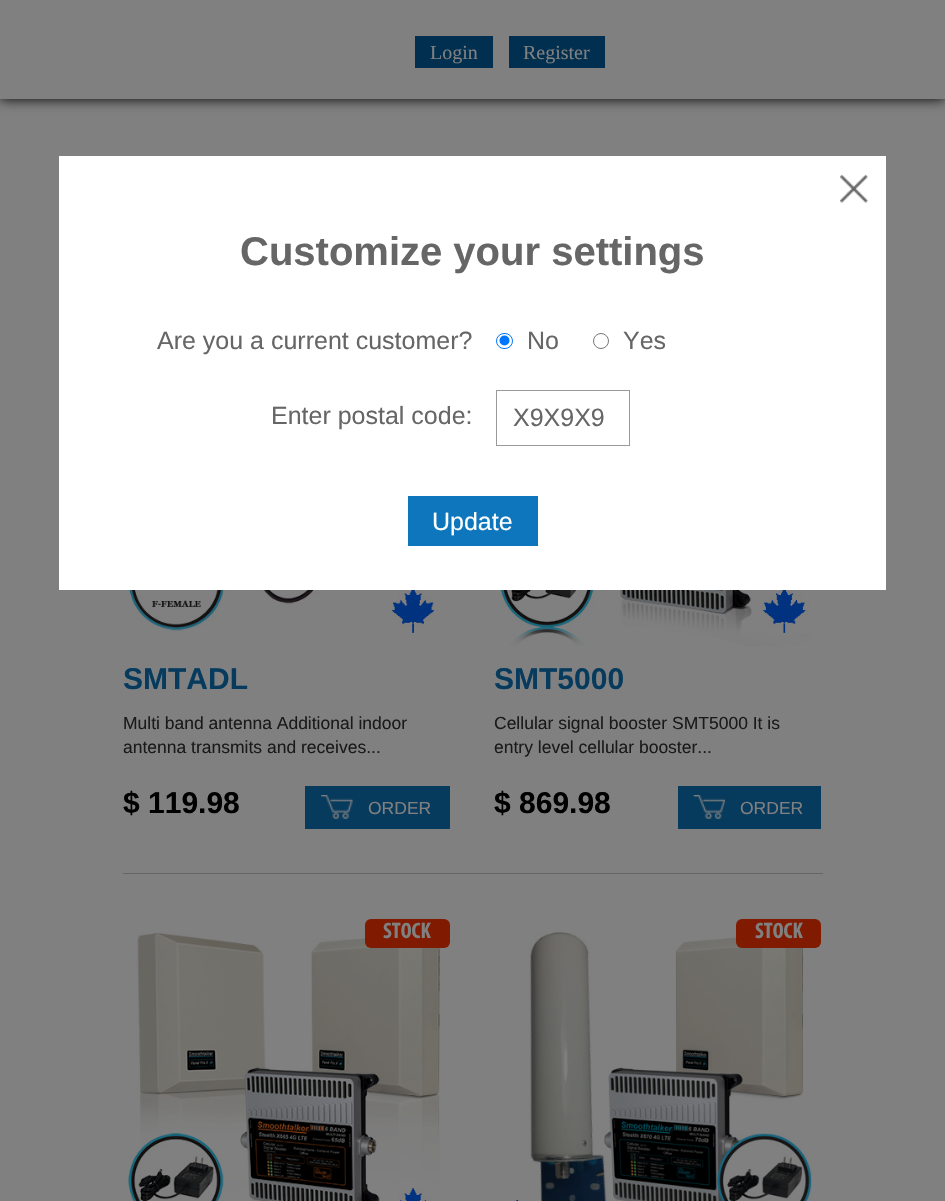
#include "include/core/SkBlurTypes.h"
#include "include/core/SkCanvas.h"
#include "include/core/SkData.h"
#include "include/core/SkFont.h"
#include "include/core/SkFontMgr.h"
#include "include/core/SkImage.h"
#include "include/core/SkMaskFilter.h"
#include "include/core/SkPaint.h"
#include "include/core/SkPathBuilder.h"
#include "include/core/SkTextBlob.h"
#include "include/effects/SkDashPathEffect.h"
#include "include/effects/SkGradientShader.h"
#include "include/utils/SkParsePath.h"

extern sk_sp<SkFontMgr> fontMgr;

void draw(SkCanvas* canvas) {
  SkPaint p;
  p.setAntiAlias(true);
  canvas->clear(SkColorSetRGB(128, 128, 128));
  canvas->save();
  canvas->clipPath(SkPathBuilder(SkPathFillType::kEvenOdd).moveTo(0, 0).lineTo(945, 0).lineTo(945, 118).lineTo(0, 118).close().moveTo(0, 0).lineTo(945, 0).lineTo(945, 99).lineTo(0, 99).close().detach(), true);
  p.setColor(SK_ColorBLACK);
  p.setMaskFilter(SkMaskFilter::MakeBlur(kNormal_SkBlurStyle, 6));
  canvas->drawRect(SkRect::MakeLTRB(0, 0, 945, 99), p);
  p.setMaskFilter(nullptr);
  canvas->restore();
  p.setColor(SkColorSetRGB(1, 47, 79));
  canvas->drawRect(SkRect::MakeLTRB(415, 36, 493, 68), p);
  canvas->drawRect(SkRect::MakeLTRB(509, 36, 605, 68), p);
  canvas->drawImageRect(SkImages::DeferredFromEncodedData(SkData::MakeFromFileName("images/1.png")), SkRect::MakeLTRB(128, 590, 434, 633), SkSamplingOptions());
  p.setColor(SkColorSetRGB(7, 59, 94));
  canvas->drawRect(SkRect::MakeLTRB(305, 786, 450, 829), p);
  canvas->drawImageRect(SkImages::DeferredFromEncodedData(SkData::MakeFromFileName("images/2.png")), SkRect::MakeLTRB(321, 795, 353, 819), SkSamplingOptions());
  p.setColor(SkColorSetRGB(102, 102, 102));
  canvas->drawRect(SkRect::MakeLTRB(123, 873, 823, 874), p);
  canvas->drawImageRect(SkImages::DeferredFromEncodedData(SkData::MakeFromFileName("images/3.png")), SkRect::MakeLTRB(499, 590, 812, 646), SkSamplingOptions());
  p.setColor(SkColorSetRGB(7, 59, 94));
  canvas->drawRect(SkRect::MakeLTRB(678, 786, 821, 829), p);
  canvas->drawImageRect(SkImages::DeferredFromEncodedData(SkData::MakeFromFileName("images/4.png")), SkRect::MakeLTRB(693, 795, 725, 819), SkSamplingOptions());
  canvas->drawImageRect(SkImages::DeferredFromEncodedData(SkData::MakeFromFileName("images/5.png")), SkRect::MakeLTRB(128, 933, 440, 1201), SkSamplingOptions());
  p.setColor(SkColorSetRGB(128, 26, 0));
  canvas->drawRoundRect(SkRect::MakeLTRB(365, 919, 450, 948), 6, 6, p);
  canvas->drawImageRect(SkImages::DeferredFromEncodedData(SkData::MakeFromFileName("images/6.png")), SkRect::MakeLTRB(516, 932, 812, 1201), SkSamplingOptions());
  canvas->drawRoundRect(SkRect::MakeLTRB(736, 919, 821, 948), 6, 6, p);
  p.setColor(SK_ColorWHITE);
  canvas->drawRect(SkRect::MakeLTRB(59, 156, 886, 590), p);
  canvas->drawImageRect(SkImages::DeferredFromEncodedData(SkData::MakeFromFileName("images/7.png")), SkRect::MakeLTRB(840, 174, 868, 203), SkSamplingOptions());
  p.setStyle(SkPaint::kStroke_Style);
  p.setStrokeWidth(1);
  p.setColor(SkColorSetRGB(0, 117, 255));
  canvas->drawRoundRect(SkRect::MakeLTRB(496.5f, 333.5f, 512.5f, 348.5f), 7.5f, 7.5f, p);
  p.setStyle(SkPaint::kFill_Style);
  canvas->drawCircle(504.5f, 340.5f, 5, p);
  p.setStyle(SkPaint::kStroke_Style);
  p.setColor(SkColorSetRGB(118, 118, 118));
  canvas->drawCircle(601, 341, 7.5f, p);
  p.setColor(SkColorSetRGB(153, 153, 153));
  canvas->drawRect(SkRect::MakeLTRB(496.5f, 390.5f, 629.5f, 445.5f), p);
  p.setStyle(SkPaint::kFill_Style);
  p.setColor(SkColorSetRGB(14, 118, 188));
  canvas->drawRect(SkRect::MakeLTRB(408, 496, 538, 546), p);
  SkFont font1(fontMgr->matchFamilyStyle("Liberation Serif", SkFontStyle::Normal()), 20);
  font1.setSubpixel(true);
  p.setColor(SkColorSetRGB(128, 128, 128));
  canvas->drawString("Login", 430, 59, font1, p);
  canvas->drawString("Register", 523, 59, font1, p);
  SkFont font2(fontMgr->matchFamilyStyle("Liberation Sans", SkFontStyle::Bold()), 30);
  font2.setSubpixel(true);
  p.setColor(SkColorSetRGB(7, 59, 94));
  canvas->drawString("SMTADL", 123, 689, font2, p);
  SkFont font3(fontMgr->matchFamilyStyle("Liberation Sans", SkFontStyle::Normal()), 17.5f);
  font3.setSubpixel(true);
  p.setColor(SkColorSetRGB(26, 26, 26));
  canvas->drawString("Multi band antenna Additional indoor", 123, 729, font3, p);
  canvas->drawString("antenna transmits and receives...", 123, 753, font3, p);
  p.setColor(SK_ColorBLACK);
  canvas->drawString("$ 119.98", 123, 813, font2, p);
  p.setColor(SkColorSetRGB(128, 128, 128));
  canvas->drawString("ORDER", 368, 814, font3, p);
  p.setColor(SkColorSetRGB(7, 59, 94));
  canvas->drawString("SMT5000", 494, 689, font2, p);
  p.setColor(SkColorSetRGB(26, 26, 26));
  canvas->drawString("Cellular signal booster SMT5000 It is", 494, 729, font3, p);
  canvas->drawString("entry level cellular booster...", 494, 753, font3, p);
  p.setColor(SK_ColorBLACK);
  canvas->drawString("$ 869.98", 494, 813, font2, p);
  p.setColor(SkColorSetRGB(128, 128, 128));
  canvas->drawString("ORDER", 740, 814, font3, p);
  SkFont font4(fontMgr->matchFamilyStyle("Myriad", SkFontStyle::Bold()), 22.5f);
  font4.setSubpixel(true);
  canvas->drawString("STOCK", 383, 938, font4, p);
  canvas->drawString("STOCK", 755, 938, font4, p);
  SkFont font5(fontMgr->matchFamilyStyle("Liberation Sans", SkFontStyle::Bold()), 40);
  font5.setSubpixel(true);
  p.setColor(SkColorSetRGB(102, 102, 102));
  canvas->drawString("Customize your settings", 240, 265, font5, p);
  SkFont font6(fontMgr->matchFamilyStyle("Liberation Sans", SkFontStyle::Normal()), 25);
  font6.setSubpixel(true);
  canvas->drawString("Are you a current customer?", 157, 349, font6, p);
  canvas->drawString("No", 527, 349, font6, p);
  canvas->drawString("Yes", 623, 349, font6, p);
  canvas->drawString("Enter postal code:", 271, 424, font6, p);
  canvas->drawString("X9X9X9", 513, 426, font6, p);
  p.setColor(SK_ColorWHITE);
  canvas->drawString("Update", 432, 530, font6, p);
}
